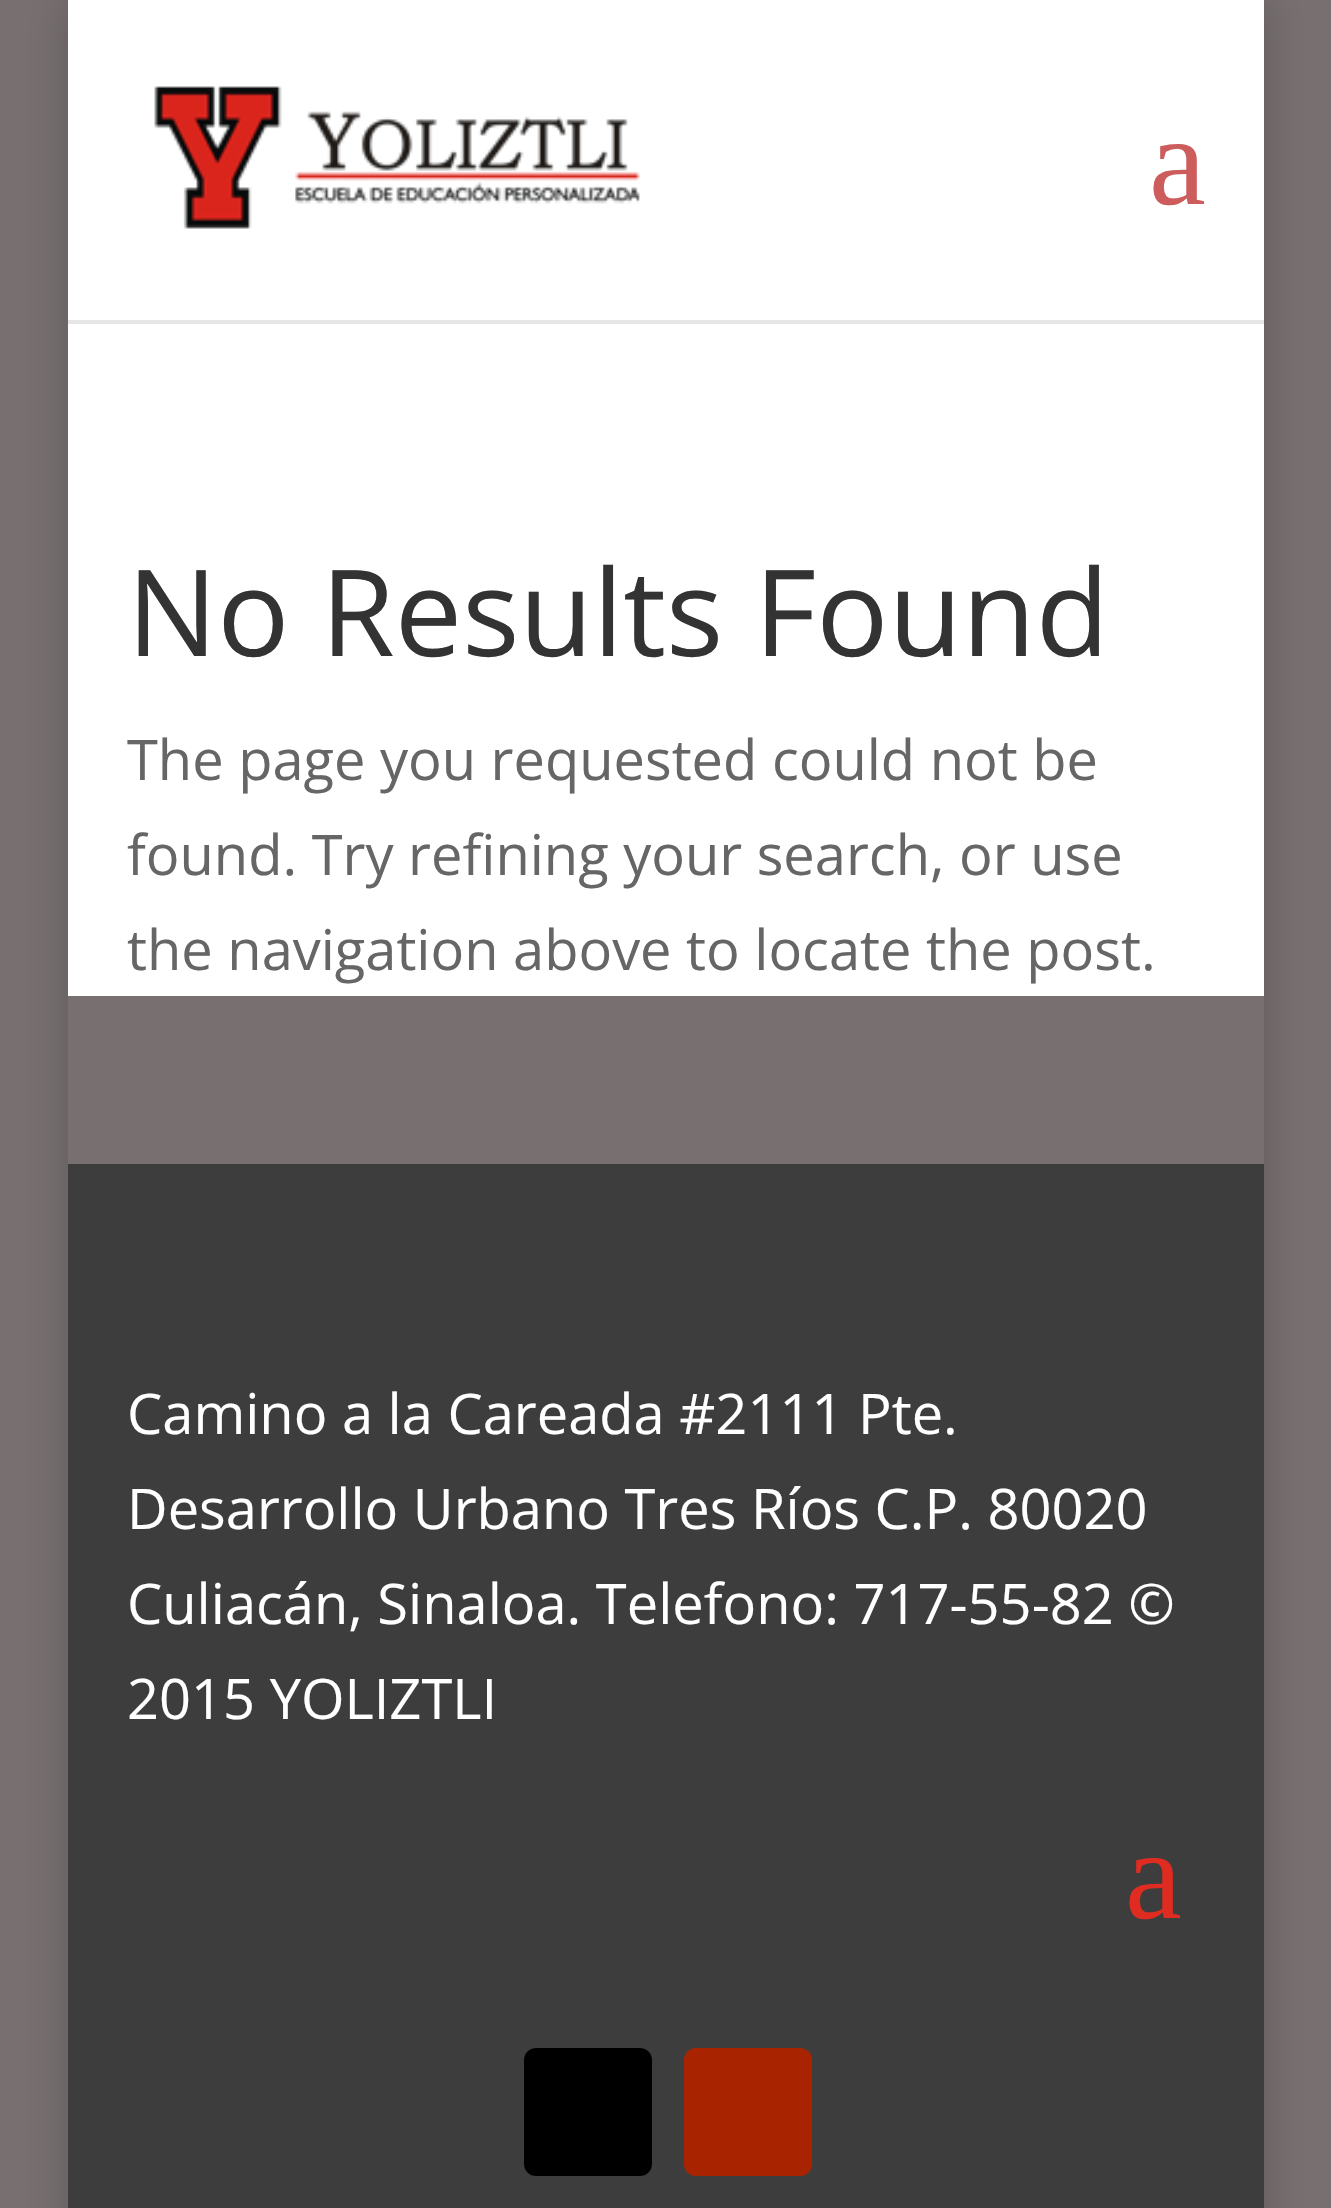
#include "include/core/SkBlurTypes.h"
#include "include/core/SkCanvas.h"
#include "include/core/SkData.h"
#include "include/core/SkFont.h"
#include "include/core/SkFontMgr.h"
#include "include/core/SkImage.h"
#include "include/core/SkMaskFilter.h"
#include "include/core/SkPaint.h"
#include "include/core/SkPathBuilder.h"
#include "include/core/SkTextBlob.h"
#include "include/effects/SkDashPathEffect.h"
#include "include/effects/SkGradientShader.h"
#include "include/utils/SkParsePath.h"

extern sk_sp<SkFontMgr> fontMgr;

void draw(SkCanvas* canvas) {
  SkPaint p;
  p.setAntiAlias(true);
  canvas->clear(SkColorSetRGB(120, 112, 112));
  canvas->save();
  canvas->clipPath(SkPathBuilder(SkPathFillType::kEvenOdd).moveTo(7, 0).lineTo(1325, 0).lineTo(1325, 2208).lineTo(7, 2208).close().moveTo(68, 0).lineTo(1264, 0).lineTo(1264, 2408).lineTo(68, 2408).close().detach(), true);
  p.setColor(SkColorSetARGB(51, 0, 0, 0));
  p.setMaskFilter(SkMaskFilter::MakeBlur(kNormal_SkBlurStyle, 20));
  canvas->drawRect(SkRect::MakeLTRB(68, 0, 1264, 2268), p);
  p.setMaskFilter(nullptr);
  canvas->restore();
  p.setColor(SkColorSetRGB(230, 230, 230));
  canvas->drawRect(SkRect::MakeLTRB(68, 320, 1264, 324), p);
  p.setColor(SK_ColorWHITE);
  canvas->drawRect(SkRect::MakeLTRB(68, 0, 1264, 320), p);
  canvas->drawImageRect(SkImages::DeferredFromEncodedData(SkData::MakeFromFileName("images/1.png")), SkRect::MakeLTRB(154, 86, 640, 229), SkSamplingOptions());
  canvas->drawRect(SkRect::MakeLTRB(68, 324, 1264, 996), p);
  p.setColor(SkColorSetRGB(61, 61, 61));
  canvas->drawRect(SkRect::MakeLTRB(68, 1164, 1264, 2208), p);
  p.setColor(SK_ColorBLACK);
  canvas->drawRoundRect(SkRect::MakeLTRB(524, 2048, 652, 2176), 12, 12, p);
  p.setColor(SkColorSetRGB(168, 36, 0));
  canvas->drawRoundRect(SkRect::MakeLTRB(684, 2048, 812, 2176), 12, 12, p);
  SkFont font1(fontMgr->matchFamilyStyle("Liberation Serif", SkFontStyle::Normal()), 128);
  font1.setSubpixel(true);
  p.setColor(SkColorSetRGB(205, 92, 92));
  canvas->drawString("a", 1149, 204, font1, p);
  SkFont font2(fontMgr->matchFamilyStyle("Open Sans", SkFontStyle::Normal()), 120);
  font2.setSubpixel(true);
  p.setColor(SkColorSetRGB(51, 51, 51));
  canvas->drawString("No Results Found", 127, 656, font2, p);
  SkFont font3(fontMgr->matchFamilyStyle("Open Sans", SkFontStyle::Normal()), 56);
  font3.setSubpixel(true);
  p.setColor(SkColorSetRGB(102, 102, 102));
  canvas->drawString("The page you requested could not be", 127, 780, font3, p);
  canvas->drawString("found. Try refining your search, or use", 127, 875, font3, p);
  canvas->drawString("the navigation above to locate the post.", 127, 970, font3, p);
  p.setColor(SK_ColorWHITE);
  canvas->drawString("Camino a la Careada #2111 Pte.", 127, 1434, font3, p);
  canvas->drawString("Desarrollo Urbano Tres Ríos C.P. 80020", 127, 1529, font3, p);
  canvas->drawString("Culiacán, Sinaloa. Telefono: 717-55-82 ©", 127, 1624, font3, p);
  canvas->drawString("2015 YOLIZTLI", 127, 1719, font3, p);
  p.setColor(SkColorSetRGB(224, 43, 32));
  canvas->drawString("a", 1125, 1918, font1, p);
}
